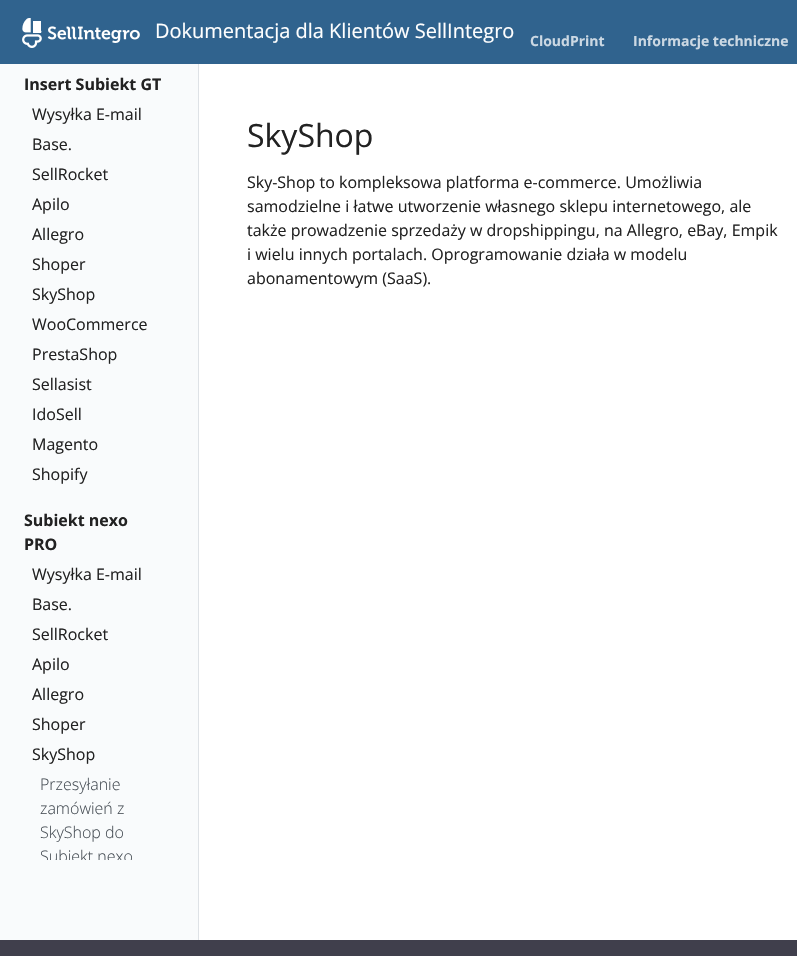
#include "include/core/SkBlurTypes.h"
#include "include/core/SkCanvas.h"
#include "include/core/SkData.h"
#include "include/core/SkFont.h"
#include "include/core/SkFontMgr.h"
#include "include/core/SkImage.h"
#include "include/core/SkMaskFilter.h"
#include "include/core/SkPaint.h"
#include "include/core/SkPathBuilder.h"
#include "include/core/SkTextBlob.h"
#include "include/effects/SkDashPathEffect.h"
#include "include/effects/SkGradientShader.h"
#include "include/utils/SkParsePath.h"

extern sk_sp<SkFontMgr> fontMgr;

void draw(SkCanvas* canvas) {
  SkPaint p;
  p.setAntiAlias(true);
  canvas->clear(SK_ColorWHITE);
  p.setColor(SkColorSetRGB(48, 99, 142));
  canvas->drawRect(SkRect::MakeLTRB(0, 0, 797, 64), p);
  canvas->drawImageRect(SkImages::DeferredFromEncodedData(SkData::MakeFromFileName("images/1.png")), SkRect::MakeLTRB(22, 18, 140, 48), SkSamplingOptions());
  p.setColor(SkColorSetRGB(249, 251, 252));
  canvas->drawRect(SkRect::MakeLTRB(0, 64, 198, 940), p);
  p.setColor(SkColorSetRGB(222, 226, 230));
  canvas->drawRect(SkRect::MakeLTRB(198, 64, 199, 940), p);
  p.setColor(SkColorSetRGB(64, 63, 76));
  canvas->drawRect(SkRect::MakeLTRB(0, 940, 797, 956), p);
  SkFont font1(fontMgr->matchFamilyStyle("Open Sans", SkFontStyle::Normal()), 20);
  font1.setSubpixel(true);
  p.setColor(SK_ColorWHITE);
  canvas->drawString("Dokumentacja dla Klientów SellIntegro", 155, 38, font1, p);
  SkFont font2(fontMgr->matchFamilyStyle("Open Sans", SkFontStyle::Bold()), 14);
  font2.setSubpixel(true);
  p.setColor(SkColorSetRGB(203, 216, 227));
  canvas->drawString("CloudPrint", 530, 46, font2, p);
  canvas->drawString("Informacje techniczne", 633, 46, font2, p);
  SkFont font3(fontMgr->matchFamilyStyle("Open Sans", SkFontStyle::Bold()), 16);
  font3.setSubpixel(true);
  p.setColor(SkColorSetRGB(34, 34, 34));
  canvas->drawString("Insert Subiekt GT", 24, 90, font3, p);
  SkFont font4(fontMgr->matchFamilyStyle("Open Sans", SkFontStyle::Normal()), 16);
  font4.setSubpixel(true);
  canvas->drawString("Wysyłka E-mail", 32, 120, font4, p);
  canvas->drawString("Base.", 32, 150, font4, p);
  canvas->drawString("SellRocket", 32, 180, font4, p);
  canvas->drawString("Apilo", 32, 210, font4, p);
  canvas->drawString("Allegro", 32, 240, font4, p);
  canvas->drawString("Shoper", 32, 270, font4, p);
  canvas->drawString("SkyShop", 32, 300, font4, p);
  canvas->drawString("WooCommerce", 32, 330, font4, p);
  canvas->drawString("PrestaShop", 32, 360, font4, p);
  canvas->drawString("Sellasist", 32, 390, font4, p);
  canvas->drawString("IdoSell", 32, 420, font4, p);
  canvas->drawString("Magento", 32, 450, font4, p);
  canvas->drawString("Shopify", 32, 480, font4, p);
  canvas->drawString("Subiekt nexo", 24, 526, font3, p);
  canvas->drawString("PRO", 24, 550, font3, p);
  canvas->drawString("Wysyłka E-mail", 32, 580, font4, p);
  canvas->drawString("Base.", 32, 610, font4, p);
  canvas->drawString("SellRocket", 32, 640, font4, p);
  canvas->drawString("Apilo", 32, 670, font4, p);
  canvas->drawString("Allegro", 32, 700, font4, p);
  canvas->drawString("Shoper", 32, 730, font4, p);
  canvas->drawString("SkyShop", 32, 760, font4, p);
  SkFont font5(fontMgr->matchFamilyStyle("Open Sans", SkFontStyle(300, SkFontStyle::kNormal_Width, SkFontStyle::kUpright_Slant)), 16);
  font5.setSubpixel(true);
  p.setColor(SkColorSetRGB(73, 80, 87));
  canvas->drawString("Przesyłanie", 40, 790, font5, p);
  canvas->drawString("zamówień z", 40, 814, font5, p);
  canvas->drawString("SkyShop do", 40, 838, font5, p);
  canvas->save();
  canvas->clipRect(SkRect::MakeLTRB(0, 64, 197, 860));
  canvas->drawString("Subiekt nexo", 40, 862, font5, p);
  canvas->restore();
  SkFont font6(fontMgr->matchFamilyStyle("Open Sans", SkFontStyle::Normal()), 32);
  font6.setSubpixel(true);
  p.setColor(SkColorSetRGB(34, 34, 34));
  canvas->drawString("SkyShop", 247, 147, font6, p);
  canvas->drawString("Sky-Shop to kompleksowa platforma e-commerce. Umożliwia", 247, 188, font4, p);
  canvas->drawString("samodzielne i łatwe utworzenie własnego sklepu internetowego, ale", 247, 212, font4, p);
  canvas->drawString("także prowadzenie sprzedaży w dropshippingu, na Allegro, eBay, Empik", 247, 236, font4, p);
  canvas->drawString("i wielu innych portalach. Oprogramowanie działa w modelu", 247, 260, font4, p);
  canvas->drawString("abonamentowym (SaaS).", 247, 284, font4, p);
}
